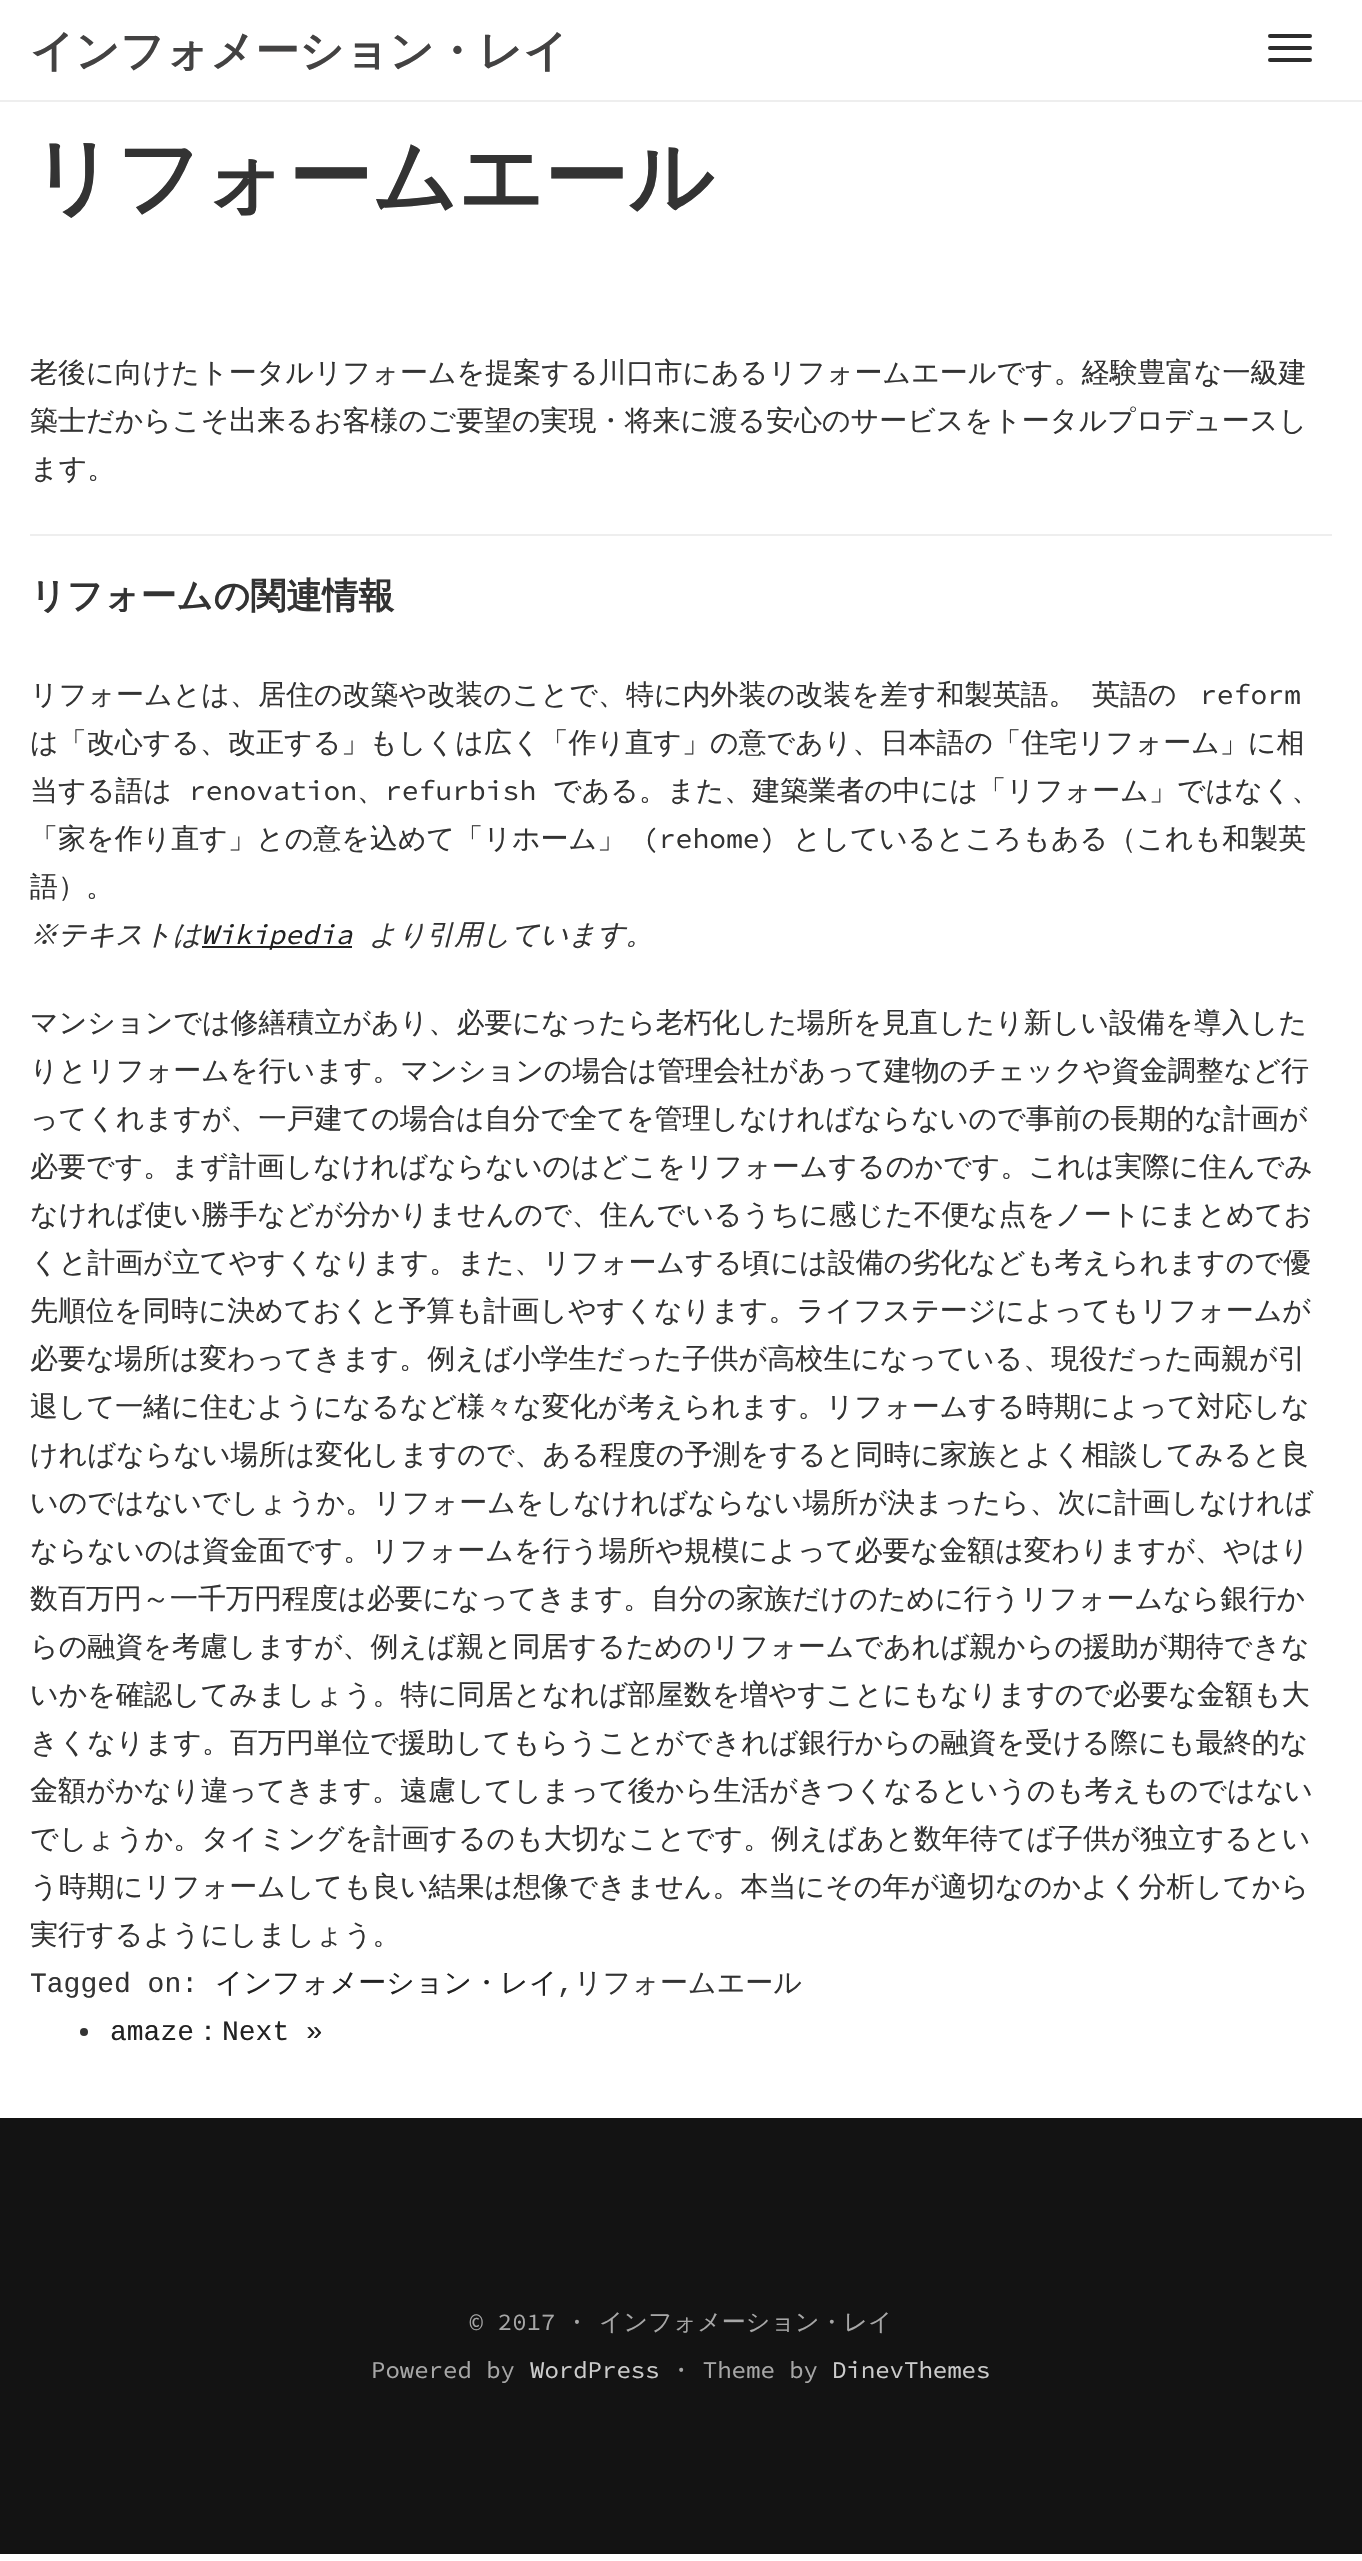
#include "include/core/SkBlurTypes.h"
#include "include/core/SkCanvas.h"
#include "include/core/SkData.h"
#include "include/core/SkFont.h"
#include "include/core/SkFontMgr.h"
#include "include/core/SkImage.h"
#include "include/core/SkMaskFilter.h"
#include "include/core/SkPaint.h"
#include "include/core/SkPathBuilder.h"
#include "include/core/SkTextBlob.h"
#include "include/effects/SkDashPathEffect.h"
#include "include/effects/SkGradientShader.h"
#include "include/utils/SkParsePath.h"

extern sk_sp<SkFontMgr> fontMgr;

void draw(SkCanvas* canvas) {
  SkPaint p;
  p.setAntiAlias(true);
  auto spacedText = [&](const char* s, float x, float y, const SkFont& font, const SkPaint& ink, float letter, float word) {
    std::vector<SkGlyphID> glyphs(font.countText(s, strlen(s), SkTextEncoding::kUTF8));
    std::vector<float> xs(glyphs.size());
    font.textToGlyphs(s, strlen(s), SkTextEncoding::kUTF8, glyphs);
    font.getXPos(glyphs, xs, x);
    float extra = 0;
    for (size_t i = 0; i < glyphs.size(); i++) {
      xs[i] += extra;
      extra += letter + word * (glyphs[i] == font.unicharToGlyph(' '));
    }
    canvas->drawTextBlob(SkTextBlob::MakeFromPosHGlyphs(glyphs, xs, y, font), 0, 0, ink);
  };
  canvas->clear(SK_ColorWHITE);
  p.setColor(SkColorSetRGB(238, 238, 238));
  canvas->drawRect(SkRect::MakeLTRB(0, 100, 1362, 102), p);
  p.setColor(SkColorSetRGB(44, 44, 44));
  canvas->drawRoundRect(SkRect::MakeLTRB(1268, 34, 1312, 38), 2, 2, p);
  canvas->drawRoundRect(SkRect::MakeLTRB(1268, 46, 1312, 50), 2, 2, p);
  canvas->drawRoundRect(SkRect::MakeLTRB(1268, 58, 1312, 62), 2, 2, p);
  p.setColor(SkColorSetRGB(238, 238, 238));
  canvas->drawRect(SkRect::MakeLTRB(30, 534, 1332, 536), p);
  p.setColor(SkColorSetRGB(34, 34, 34));
  canvas->drawRect(SkRect::MakeLTRB(202, 946, 352, 948), p);
  p.setColor(SkColorSetRGB(51, 51, 51));
  canvas->drawCircle(84, 2032, 4, p);
  p.setColor(SkColorSetRGB(19, 19, 19));
  canvas->drawRect(SkRect::MakeLTRB(0, 2118, 1362, 2554), p);
  SkFont font1(fontMgr->matchFamilyStyle("WenQuanYi Zen Hei", SkFontStyle::Bold()), 44);
  font1.setSubpixel(true);
  p.setColor(SkColorSetRGB(67, 66, 66));
  canvas->drawString("インフォメーション・レイ", 30, 66, font1, p);
  SkFont font2(fontMgr->matchFamilyStyle("WenQuanYi Zen Hei", SkFontStyle::Bold()), 84);
  font2.setSubpixel(true);
  p.setColor(SkColorSetRGB(51, 51, 51));
  canvas->drawString("リフォームエール", 30, 206, font2, p);
  SkFont font3(fontMgr->matchFamilyStyle("WenQuanYi Zen Hei", SkFontStyle(500, SkFontStyle::kNormal_Width, SkFontStyle::kUpright_Slant)), 28);
  font3.setSubpixel(true);
  canvas->drawString("老後に向けたトータルリフォームを提案する川口市にあるリフォームエールです。経験豊富な一級建", 30, 382, font3, p);
  canvas->drawString("築士だからこそ出来るお客様のご要望の実現・将来に渡る安心のサービスをトータルプロデュースし", 30, 430, font3, p);
  canvas->drawString("ます。", 30, 478, font3, p);
  SkFont font4(fontMgr->matchFamilyStyle("WenQuanYi Zen Hei", SkFontStyle::Bold()), 36);
  font4.setSubpixel(true);
  canvas->drawString("リフォームの関連情報", 30, 608, font4, p);
  spacedText("リフォームとは、居住の改築や改装のことで、特に内外装の改装を差す和製英語。 英語の", 30, 704, font3, p, 0, 7);
  SkFont font5(fontMgr->matchFamilyStyle("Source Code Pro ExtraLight", SkFontStyle::Normal()), 28);
  font5.setSubpixel(true);
  canvas->drawString("reform", 1200, 704, font5, p);
  canvas->drawString("は「改心する、改正する」もしくは広く「作り直す」の意であり、日本語の「住宅リフォーム」に相", 30, 752, font3, p);
  canvas->drawString("当する語は", 30, 800, font3, p);
  canvas->drawString("renovation", 189, 800, font5, p);
  canvas->drawString("、", 357, 800, font3, p);
  canvas->drawString("refurbish", 385, 800, font5, p);
  canvas->drawString("である。また、建築業者の中には「リフォーム」ではなく、", 553, 800, font3, p);
  canvas->drawString("「家を作り直す」との意を込めて「リホーム」", 30, 848, font3, p);
  canvas->drawString("(rehome)", 642, 848, font5, p);
  canvas->drawString("としているところもある（これも和製英", 793, 848, font3, p);
  canvas->drawString("語）。", 30, 896, font3, p);
  SkFont font6(fontMgr->matchFamilyStyle("WenQuanYi Zen Hei", SkFontStyle(500, SkFontStyle::kNormal_Width, SkFontStyle::kItalic_Slant)), 28);
  font6.setSubpixel(true);
  canvas->drawString("※テキストは", 30, 944, font6, p);
  SkFont font7(fontMgr->matchFamilyStyle("Source Code Pro ExtraLight", SkFontStyle::Italic()), 28);
  font7.setSubpixel(true);
  p.setColor(SkColorSetRGB(34, 34, 34));
  canvas->drawString("Wikipedia", 201, 944, font7, p);
  p.setColor(SkColorSetRGB(51, 51, 51));
  canvas->drawString("より引用しています。", 369, 944, font6, p);
  canvas->drawString("マンションでは修繕積立があり、必要になったら老朽化した場所を見直したり新しい設備を導入した", 30, 1032, font3, p);
  canvas->drawString("りとリフォームを行います。マンションの場合は管理会社があって建物のチェックや資金調整など行", 30, 1080, font3, p);
  canvas->drawString("ってくれますが、一戸建ての場合は自分で全てを管理しなければならないので事前の長期的な計画が", 30, 1128, font3, p);
  canvas->drawString("必要です。まず計画しなければならないのはどこをリフォームするのかです。これは実際に住んでみ", 30, 1176, font3, p);
  canvas->drawString("なければ使い勝手などが分かりませんので、住んでいるうちに感じた不便な点をノートにまとめてお", 30, 1224, font3, p);
  canvas->drawString("くと計画が立てやすくなります。また、リフォームする頃には設備の劣化なども考えられますので優", 30, 1272, font3, p);
  canvas->drawString("先順位を同時に決めておくと予算も計画しやすくなります。ライフステージによってもリフォームが", 30, 1320, font3, p);
  canvas->drawString("必要な場所は変わってきます。例えば小学生だった子供が高校生になっている、現役だった両親が引", 30, 1368, font3, p);
  canvas->drawString("退して一緒に住むようになるなど様々な変化が考えられます。リフォームする時期によって対応しな", 30, 1416, font3, p);
  canvas->drawString("ければならない場所は変化しますので、ある程度の予測をすると同時に家族とよく相談してみると良", 30, 1464, font3, p);
  canvas->drawString("いのではないでしょうか。リフォームをしなければならない場所が決まったら、次に計画しなければ", 30, 1512, font3, p);
  canvas->drawString("ならないのは資金面です。リフォームを行う場所や規模によって必要な金額は変わりますが、やはり", 30, 1560, font3, p);
  canvas->drawString("数百万円～一千万円程度は必要になってきます。自分の家族だけのために行うリフォームなら銀行か", 30, 1608, font3, p);
  canvas->drawString("らの融資を考慮しますが、例えば親と同居するためのリフォームであれば親からの援助が期待できな", 30, 1656, font3, p);
  canvas->drawString("いかを確認してみましょう。特に同居となれば部屋数を増やすことにもなりますので必要な金額も大", 30, 1704, font3, p);
  canvas->drawString("きくなります。百万円単位で援助してもらうことができれば銀行からの融資を受ける際にも最終的な", 30, 1752, font3, p);
  canvas->drawString("金額がかなり違ってきます。遠慮してしまって後から生活がきつくなるというのも考えものではない", 30, 1800, font3, p);
  canvas->drawString("でしょうか。タイミングを計画するのも大切なことです。例えばあと数年待てば子供が独立するとい", 30, 1848, font3, p);
  canvas->drawString("う時期にリフォームしても良い結果は想像できません。本当にその年が適切なのかよく分析してから", 30, 1896, font3, p);
  canvas->drawString("実行するようにしましょう。", 30, 1944, font3, p);
  SkFont font8(fontMgr->matchFamilyStyle("Liberation Mono", SkFontStyle::Normal()), 28);
  font8.setSubpixel(true);
  canvas->drawString("Tagged on:", 30, 1992, font8, p);
  p.setColor(SkColorSetRGB(34, 34, 34));
  canvas->drawString("インフォメーション・レイ", 215, 1992, font3, p);
  p.setColor(SkColorSetRGB(51, 51, 51));
  canvas->drawString(",", 557, 1992, font8, p);
  canvas->drawString("リフォームエール", 574, 1992, font3, p);
  p.setColor(SkColorSetRGB(34, 34, 34));
  canvas->drawString("amaze", 110, 2040, font8, p);
  canvas->drawString("：", 194, 2040, font3, p);
  canvas->drawString("Next »", 222, 2040, font8, p);
  SkFont font9(fontMgr->matchFamilyStyle("Source Code Pro ExtraLight", SkFontStyle::Normal()), 24);
  font9.setSubpixel(true);
  p.setColor(SkColorSetRGB(167, 167, 167));
  canvas->drawString("© 2017 ·", 469, 2330, font9, p);
  SkFont font10(fontMgr->matchFamilyStyle("WenQuanYi Zen Hei", SkFontStyle(500, SkFontStyle::kNormal_Width, SkFontStyle::kUpright_Slant)), 24);
  font10.setSubpixel(true);
  canvas->drawString("インフォメーション・レイ", 599, 2330, font10, p);
  canvas->drawString("Powered by", 371, 2378, font9, p);
  p.setColor(SkColorSetRGB(204, 204, 204));
  canvas->drawString("WordPress", 530, 2378, font9, p);
  p.setColor(SkColorSetRGB(167, 167, 167));
  canvas->drawString("· Theme by", 674, 2378, font9, p);
  p.setColor(SkColorSetRGB(204, 204, 204));
  canvas->drawString("DinevThemes", 832, 2378, font9, p);
}
